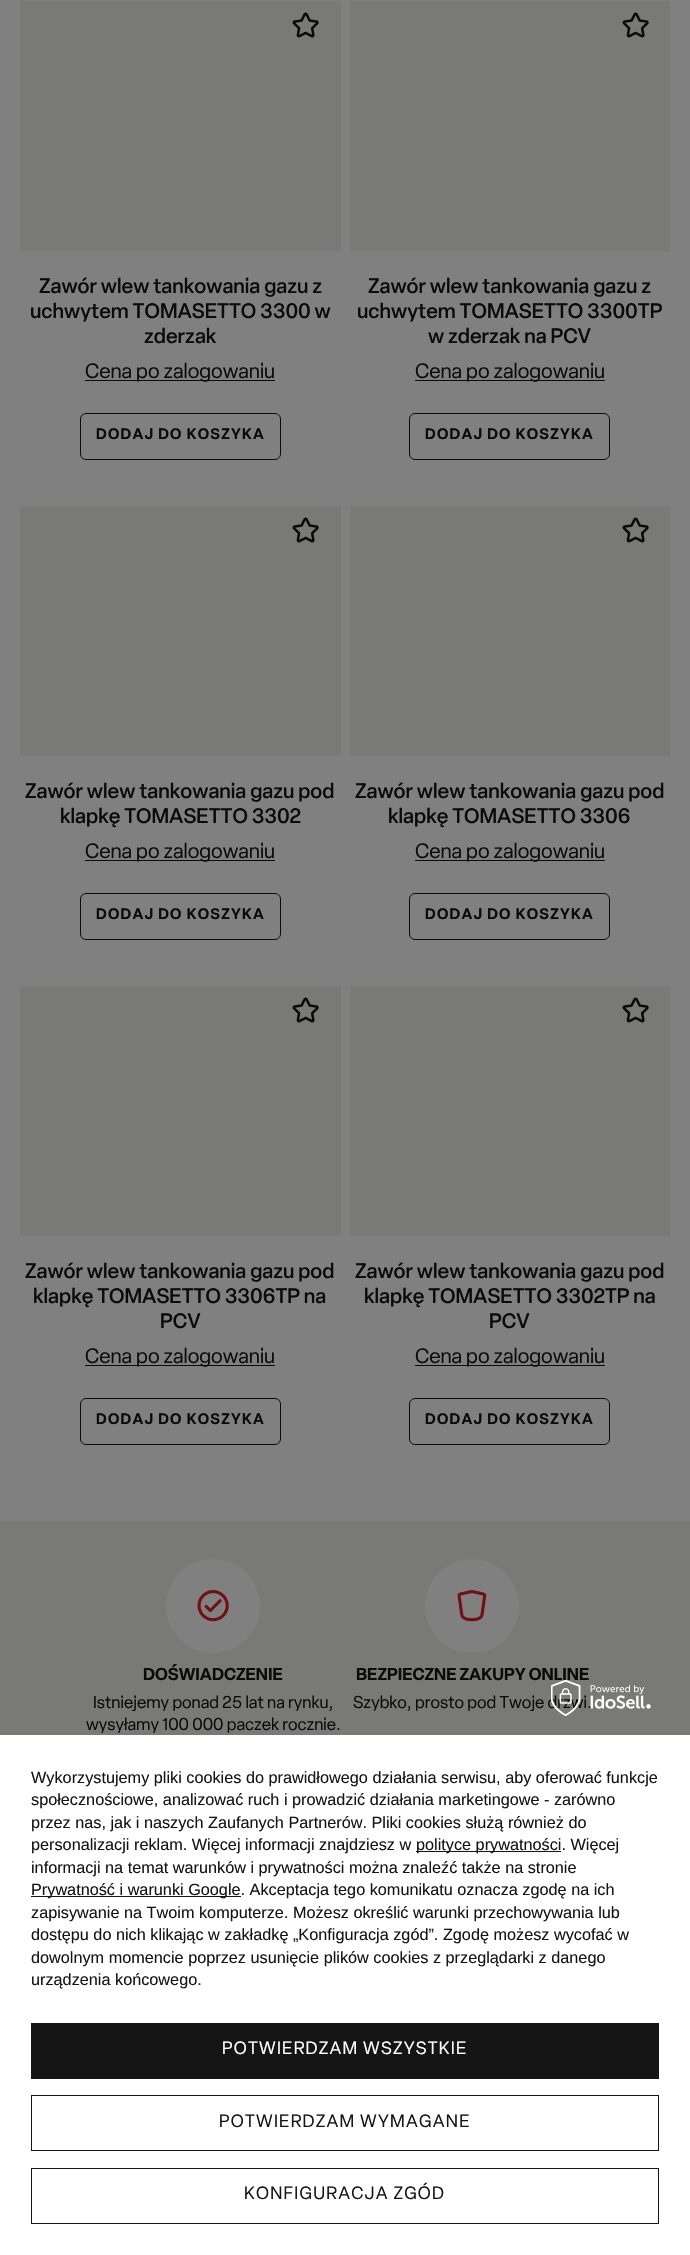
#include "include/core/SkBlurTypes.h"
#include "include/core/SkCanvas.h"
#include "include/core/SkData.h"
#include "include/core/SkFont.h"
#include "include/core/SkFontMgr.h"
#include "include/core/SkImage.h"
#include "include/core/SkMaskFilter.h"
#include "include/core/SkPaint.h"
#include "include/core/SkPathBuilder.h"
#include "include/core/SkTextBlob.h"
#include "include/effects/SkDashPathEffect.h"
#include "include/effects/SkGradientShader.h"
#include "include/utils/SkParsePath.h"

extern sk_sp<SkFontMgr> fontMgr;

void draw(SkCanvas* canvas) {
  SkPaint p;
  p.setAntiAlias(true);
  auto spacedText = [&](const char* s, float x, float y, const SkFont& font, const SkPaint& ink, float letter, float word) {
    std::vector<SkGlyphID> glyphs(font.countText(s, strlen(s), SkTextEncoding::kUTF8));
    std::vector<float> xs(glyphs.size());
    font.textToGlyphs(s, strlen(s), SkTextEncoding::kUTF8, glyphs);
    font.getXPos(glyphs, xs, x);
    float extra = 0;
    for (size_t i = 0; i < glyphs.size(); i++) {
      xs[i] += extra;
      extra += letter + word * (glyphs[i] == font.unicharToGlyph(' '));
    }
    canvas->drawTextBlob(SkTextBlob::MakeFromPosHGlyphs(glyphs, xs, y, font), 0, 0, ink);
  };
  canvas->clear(SkColorSetRGB(128, 128, 128));
  p.setColor(SkColorSetRGB(121, 121, 120));
  canvas->drawRect(SkRect::MakeLTRB(20, 1, 341, 251), p);
  canvas->drawImageRect(SkImages::DeferredFromEncodedData(SkData::MakeFromFileName("images/1.png")), SkRect::MakeLTRB(292, 12, 319, 38), SkSamplingOptions());
  p.setColor(SkColorSetRGB(11, 11, 11));
  canvas->drawRect(SkRect::MakeLTRB(85, 380, 275, 381), p);
  p.setStyle(SkPaint::kStroke_Style);
  p.setStrokeWidth(1);
  canvas->drawRoundRect(SkRect::MakeLTRB(80.5f, 413.5f, 280.5f, 459.5f), 5.5f, 5.5f, p);
  p.setStyle(SkPaint::kFill_Style);
  p.setColor(SkColorSetRGB(121, 121, 120));
  canvas->drawRect(SkRect::MakeLTRB(350, 1, 670, 251), p);
  canvas->drawImageRect(SkImages::DeferredFromEncodedData(SkData::MakeFromFileName("images/1.png")), SkRect::MakeLTRB(622, 12, 649, 38), SkSamplingOptions());
  p.setColor(SkColorSetRGB(11, 11, 11));
  canvas->drawRect(SkRect::MakeLTRB(415, 380, 605, 381), p);
  p.setStyle(SkPaint::kStroke_Style);
  canvas->drawRoundRect(SkRect::MakeLTRB(409.5f, 413.5f, 609.5f, 459.5f), 5.5f, 5.5f, p);
  p.setStyle(SkPaint::kFill_Style);
  p.setColor(SkColorSetRGB(121, 121, 120));
  canvas->drawRect(SkRect::MakeLTRB(20, 506, 341, 756), p);
  canvas->drawImageRect(SkImages::DeferredFromEncodedData(SkData::MakeFromFileName("images/1.png")), SkRect::MakeLTRB(292, 517, 319, 543), SkSamplingOptions());
  p.setColor(SkColorSetRGB(11, 11, 11));
  canvas->drawRect(SkRect::MakeLTRB(85, 860, 275, 861), p);
  p.setStyle(SkPaint::kStroke_Style);
  canvas->drawRoundRect(SkRect::MakeLTRB(80.5f, 893.5f, 280.5f, 939.5f), 5.5f, 5.5f, p);
  p.setStyle(SkPaint::kFill_Style);
  p.setColor(SkColorSetRGB(121, 121, 120));
  canvas->drawRect(SkRect::MakeLTRB(350, 506, 670, 756), p);
  canvas->drawImageRect(SkImages::DeferredFromEncodedData(SkData::MakeFromFileName("images/1.png")), SkRect::MakeLTRB(622, 517, 649, 543), SkSamplingOptions());
  p.setColor(SkColorSetRGB(11, 11, 11));
  canvas->drawRect(SkRect::MakeLTRB(415, 860, 605, 861), p);
  p.setStyle(SkPaint::kStroke_Style);
  canvas->drawRoundRect(SkRect::MakeLTRB(409.5f, 893.5f, 609.5f, 939.5f), 5.5f, 5.5f, p);
  p.setStyle(SkPaint::kFill_Style);
  p.setColor(SkColorSetRGB(121, 121, 120));
  canvas->drawRect(SkRect::MakeLTRB(20, 986, 341, 1236), p);
  canvas->drawImageRect(SkImages::DeferredFromEncodedData(SkData::MakeFromFileName("images/1.png")), SkRect::MakeLTRB(292, 997, 319, 1023), SkSamplingOptions());
  p.setColor(SkColorSetRGB(11, 11, 11));
  canvas->drawRect(SkRect::MakeLTRB(85, 1365, 275, 1366), p);
  p.setStyle(SkPaint::kStroke_Style);
  canvas->drawRoundRect(SkRect::MakeLTRB(80.5f, 1398.5f, 280.5f, 1444.5f), 5.5f, 5.5f, p);
  p.setStyle(SkPaint::kFill_Style);
  p.setColor(SkColorSetRGB(121, 121, 120));
  canvas->drawRect(SkRect::MakeLTRB(350, 986, 670, 1236), p);
  canvas->drawImageRect(SkImages::DeferredFromEncodedData(SkData::MakeFromFileName("images/1.png")), SkRect::MakeLTRB(622, 997, 649, 1023), SkSamplingOptions());
  p.setColor(SkColorSetRGB(11, 11, 11));
  canvas->drawRect(SkRect::MakeLTRB(415, 1365, 605, 1366), p);
  p.setStyle(SkPaint::kStroke_Style);
  canvas->drawRoundRect(SkRect::MakeLTRB(409.5f, 1398.5f, 609.5f, 1444.5f), 5.5f, 5.5f, p);
  p.setStyle(SkPaint::kFill_Style);
  p.setColor(SkColorSetRGB(121, 121, 120));
  canvas->drawRect(SkRect::MakeLTRB(0, 1521, 690, 1735), p);
  p.setColor(SkColorSetRGB(128, 128, 128));
  canvas->drawCircle(213, 1606, 47, p);
  canvas->drawImageRect(SkImages::DeferredFromEncodedData(SkData::MakeFromFileName("images/2.png")), SkRect::MakeLTRB(197, 1590, 229, 1622), SkSamplingOptions());
  canvas->drawCircle(472, 1606, 47, p);
  canvas->drawImageRect(SkImages::DeferredFromEncodedData(SkData::MakeFromFileName("images/3.png")), SkRect::MakeLTRB(457, 1590, 487, 1622), SkSamplingOptions());
  p.setColor(SK_ColorWHITE);
  canvas->drawRect(SkRect::MakeLTRB(0, 1735, 690, 2255), p);
  p.setColor(SkColorSetRGB(21, 21, 21));
  canvas->drawRect(SkRect::MakeLTRB(416, 1851, 561, 1852), p);
  canvas->drawRect(SkRect::MakeLTRB(31, 1896, 241, 1897), p);
  canvas->drawRect(SkRect::MakeLTRB(31, 2023, 659, 2079), p);
  p.setStyle(SkPaint::kStroke_Style);
  canvas->drawRect(SkRect::MakeLTRB(31.5f, 2095.5f, 658.5f, 2150.5f), p);
  canvas->drawRect(SkRect::MakeLTRB(31.5f, 2168.5f, 658.5f, 2223.5f), p);
  SkFont font1(fontMgr->matchFamilyStyle("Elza", SkFontStyle(500, SkFontStyle::kNormal_Width, SkFontStyle::kUpright_Slant)), 20.6f);
  font1.setSubpixel(true);
  p.setStyle(SkPaint::kFill_Style);
  p.setColor(SkColorSetRGB(11, 11, 11));
  canvas->drawString("Zawór wlew tankowania gazu z", 39, 293, font1, p);
  canvas->drawString("uchwytem TOMASETTO 3300 w", 30, 318, font1, p);
  canvas->drawString("zderzak", 144, 343, font1, p);
  SkFont font2(fontMgr->matchFamilyStyle("Elza", SkFontStyle::Normal()), 20.6f);
  font2.setSubpixel(true);
  canvas->drawString("Cena po zalogowaniu", 85, 378, font2, p);
  SkFont font3(fontMgr->matchFamilyStyle("Elza", SkFontStyle(600, SkFontStyle::kNormal_Width, SkFontStyle::kUpright_Slant)), 15);
  font3.setSubpixel(true);
  spacedText("DODAJ DO KOSZYKA", 96, 439, font3, p, 1.25f, 0);
  canvas->drawString("Zawór wlew tankowania gazu z", 368, 293, font1, p);
  canvas->drawString("uchwytem TOMASETTO 3300TP", 357, 318, font1, p);
  canvas->drawString("w zderzak na PCV", 428, 343, font1, p);
  canvas->drawString("Cena po zalogowaniu", 415, 378, font2, p);
  spacedText("DODAJ DO KOSZYKA", 425, 439, font3, p, 1.25f, 0);
  canvas->drawString("Zawór wlew tankowania gazu pod", 25, 798, font1, p);
  canvas->drawString("klapkę TOMASETTO 3302", 60, 823, font1, p);
  canvas->drawString("Cena po zalogowaniu", 85, 858, font2, p);
  spacedText("DODAJ DO KOSZYKA", 96, 919, font3, p, 1.25f, 0);
  canvas->drawString("Zawór wlew tankowania gazu pod", 355, 798, font1, p);
  canvas->drawString("klapkę TOMASETTO 3306", 388, 823, font1, p);
  canvas->drawString("Cena po zalogowaniu", 415, 858, font2, p);
  spacedText("DODAJ DO KOSZYKA", 425, 919, font3, p, 1.25f, 0);
  canvas->drawString("Zawór wlew tankowania gazu pod", 25, 1278, font1, p);
  canvas->drawString("klapkę TOMASETTO 3306TP na", 33, 1303, font1, p);
  canvas->drawString("PCV", 160, 1328, font1, p);
  canvas->drawString("Cena po zalogowaniu", 85, 1363, font2, p);
  spacedText("DODAJ DO KOSZYKA", 96, 1424, font3, p, 1.25f, 0);
  canvas->drawString("Zawór wlew tankowania gazu pod", 355, 1278, font1, p);
  canvas->drawString("klapkę TOMASETTO 3302TP na", 364, 1303, font1, p);
  canvas->drawString("PCV", 489, 1328, font1, p);
  canvas->drawString("Cena po zalogowaniu", 415, 1363, font2, p);
  spacedText("DODAJ DO KOSZYKA", 425, 1424, font3, p, 1.25f, 0);
  SkFont font4(fontMgr->matchFamilyStyle("Elza", SkFontStyle(600, SkFontStyle::kNormal_Width, SkFontStyle::kUpright_Slant)), 16.9f);
  font4.setSubpixel(true);
  canvas->drawString("DOŚWIADCZENIE", 143, 1680, font4, p);
  SkFont font5(fontMgr->matchFamilyStyle("Elza", SkFontStyle::Normal()), 16.9f);
  font5.setSubpixel(true);
  canvas->drawString("Istniejemy ponad 25 lat na rynku,", 93, 1708, font5, p);
  canvas->drawString("wysyłamy 100 000 paczek rocznie.", 86, 1730, font5, p);
  canvas->drawString("BEZPIECZNE ZAKUPY ONLINE", 356, 1680, font4, p);
  canvas->drawString("Szybko, prosto pod Twoje drzwi.", 353, 1708, font5, p);
  canvas->drawImageRect(SkImages::DeferredFromEncodedData(SkData::MakeFromFileName("images/4.png")), SkRect::MakeLTRB(551, 1680, 651, 1716), SkSamplingOptions());
  SkFont font6(fontMgr->matchFamilyStyle("Liberation Sans", SkFontStyle::Normal()), 16.25f);
  font6.setSubpixel(true);
  p.setColor(SkColorSetRGB(21, 21, 21));
  canvas->drawString("Wykorzystujemy pliki cookies do prawidłowego działania serwisu, aby oferować funkcje", 31, 1783, font6, p);
  canvas->drawString("społecznościowe, analizować ruch i prowadzić działania marketingowe - zarówno", 31, 1805, font6, p);
  canvas->drawString("przez nas, jak i naszych Zaufanych Partnerów. Pliki cookies służą również do", 31, 1828, font6, p);
  canvas->drawString("personalizacji reklam. Więcej informacji znajdziesz w", 31, 1850, font6, p);
  canvas->drawString("polityce prywatności. Więcej", 416, 1850, font6, p);
  canvas->drawString("informacji na temat warunków i prywatności można znaleźć także na stronie", 31, 1873, font6, p);
  canvas->drawString("Prywatność i warunki Google. Akceptacja tego komunikatu oznacza zgodę na ich", 31, 1895, font6, p);
  canvas->drawString("zapisywanie na Twoim komputerze. Możesz określić warunki przechowywania lub", 31, 1918, font6, p);
  canvas->drawString("dostępu do nich klikając w zakładkę „Konfiguracja zgód”. Zgodę możesz wycofać w", 31, 1940, font6, p);
  canvas->drawString("dowolnym momencie poprzez usunięcie plików cookies z przeglądarki z danego", 31, 1963, font6, p);
  canvas->drawString("urządzenia końcowego.", 31, 1985, font6, p);
  SkFont font7(fontMgr->matchFamilyStyle("Elza", SkFontStyle::Normal()), 17.5f);
  font7.setSubpixel(true);
  p.setColor(SK_ColorWHITE);
  spacedText("POTWIERDZAM WSZYSTKIE", 222, 2054, font7, p, 1.25f, 0);
  p.setColor(SkColorSetRGB(21, 21, 21));
  spacedText("POTWIERDZAM WYMAGANE", 219, 2127, font7, p, 1.25f, 0);
  spacedText("KONFIGURACJA ZGÓD", 244, 2199, font7, p, 1.25f, 0);
}
